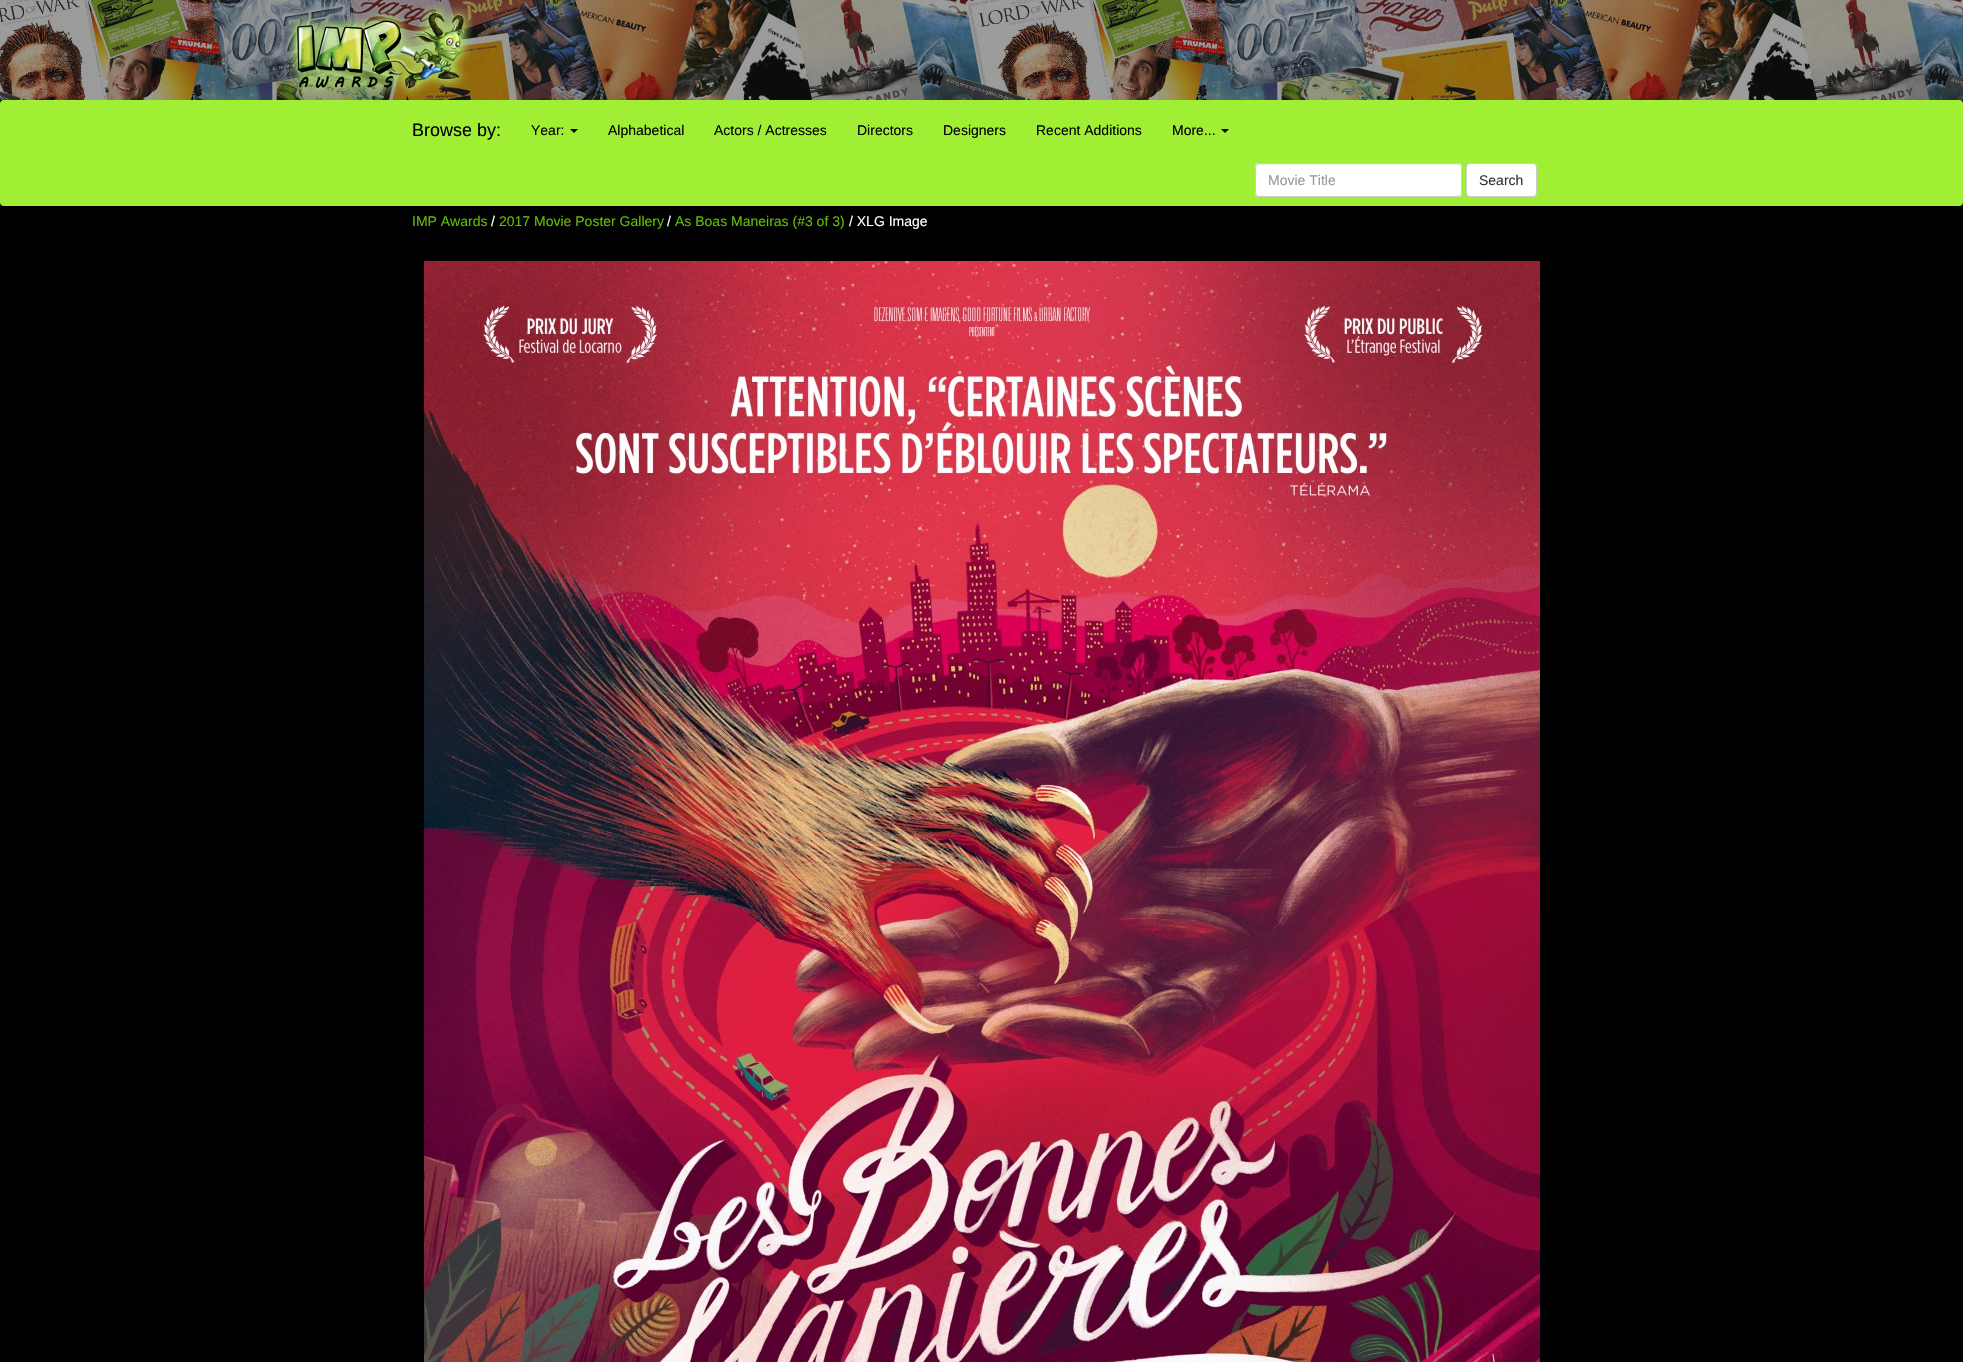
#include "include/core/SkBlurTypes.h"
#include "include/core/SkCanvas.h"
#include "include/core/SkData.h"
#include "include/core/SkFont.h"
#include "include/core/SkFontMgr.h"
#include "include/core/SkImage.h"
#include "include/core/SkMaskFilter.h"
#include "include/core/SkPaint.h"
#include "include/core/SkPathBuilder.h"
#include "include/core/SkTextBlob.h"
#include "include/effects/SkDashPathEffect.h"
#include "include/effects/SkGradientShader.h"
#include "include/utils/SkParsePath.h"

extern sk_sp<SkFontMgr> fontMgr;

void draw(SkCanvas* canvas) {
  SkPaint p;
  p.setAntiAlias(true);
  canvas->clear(SK_ColorBLACK);
  canvas->drawImageRect(SkImages::DeferredFromEncodedData(SkData::MakeFromFileName("images/1.png")), SkRect::MakeLTRB(0, 0, 1963, 100), SkSamplingOptions());
  canvas->drawImageRect(SkImages::DeferredFromEncodedData(SkData::MakeFromFileName("images/2.png")), SkRect::MakeLTRB(286, 3, 474, 98), SkSamplingOptions());
  p.setColor(SkColorSetRGB(161, 239, 52));
  canvas->drawRoundRect(SkRect::MakeLTRB(0, 100, 1963, 206), 4, 4, p);
  p.setColor(SK_ColorBLACK);
  canvas->drawPath(SkPathBuilder().moveTo(570, 129).lineTo(578, 129).lineTo(574, 133).close().detach(), p);
  canvas->drawPath(SkPathBuilder().moveTo(1221, 129).lineTo(1229, 129).lineTo(1225, 133).close().detach(), p);
  p.setColor(SK_ColorWHITE);
  canvas->drawRoundRect(SkRect::MakeLTRB(1255, 163, 1462, 197), 4, 4, p);
  p.setColor(SkColorSetRGB(236, 236, 236));
  canvas->drawPath(SkPathBuilder().moveTo(1259, 165).lineTo(1458, 165).cubicTo(1460, 165, 1461, 166, 1461, 168).cubicTo(1461, 166, 1460, 164, 1458, 164).lineTo(1259, 164).cubicTo(1257, 164, 1256, 166, 1256, 168).cubicTo(1256, 166, 1257, 165, 1259, 165).close().detach(), p);
  p.setStyle(SkPaint::kStroke_Style);
  p.setStrokeWidth(1);
  p.setColor(SkColorSetRGB(204, 204, 204));
  canvas->drawRoundRect(SkRect::MakeLTRB(1255.5f, 163.5f, 1461.5f, 196.5f), 3.5f, 3.5f, p);
  p.setStyle(SkPaint::kFill_Style);
  p.setColor(SK_ColorWHITE);
  canvas->drawRoundRect(SkRect::MakeLTRB(1466.5f, 163.5f, 1536.5f, 196.5f), 3.5f, 3.5f, p);
  p.setStyle(SkPaint::kStroke_Style);
  p.setColor(SkColorSetRGB(204, 204, 204));
  canvas->drawRoundRect(SkRect::MakeLTRB(1466.5f, 163.5f, 1536.5f, 196.5f), 3.5f, 3.5f, p);
  canvas->drawImageRect(SkImages::DeferredFromEncodedData(SkData::MakeFromFileName("images/3.png")), SkRect::MakeLTRB(424, 261, 1540, 1362), SkSamplingOptions());
  SkFont font1(fontMgr->matchFamilyStyle("Liberation Sans", SkFontStyle::Normal()), 18);
  font1.setSubpixel(true);
  p.setStyle(SkPaint::kFill_Style);
  p.setColor(SK_ColorBLACK);
  canvas->drawString("Browse by:", 412, 136, font1, p);
  SkFont font2(fontMgr->matchFamilyStyle("Liberation Sans", SkFontStyle::Normal()), 14);
  font2.setSubpixel(true);
  canvas->drawString("Year:", 531, 135, font2, p);
  canvas->drawString("Alphabetical", 608, 135, font2, p);
  canvas->drawString("Actors / Actresses", 714, 135, font2, p);
  canvas->drawString("Directors", 857, 135, font2, p);
  canvas->drawString("Designers", 943, 135, font2, p);
  canvas->drawString("Recent Additions", 1036, 135, font2, p);
  canvas->drawString("More...", 1172, 135, font2, p);
  p.setColor(SkColorSetRGB(153, 153, 153));
  canvas->drawString("Movie Title", 1268, 185, font2, p);
  p.setColor(SkColorSetRGB(51, 51, 51));
  canvas->drawString("Search", 1479, 185, font2, p);
  p.setColor(SkColorSetRGB(102, 189, 4));
  canvas->drawString("IMP Awards", 412, 226, font2, p);
  p.setColor(SK_ColorWHITE);
  canvas->drawString("/", 491, 226, font2, p);
  p.setColor(SkColorSetRGB(102, 189, 4));
  canvas->drawString("2017 Movie Poster Gallery", 499, 226, font2, p);
  p.setColor(SK_ColorWHITE);
  canvas->drawString("/", 667, 226, font2, p);
  p.setColor(SkColorSetRGB(102, 189, 4));
  canvas->drawString("As Boas Maneiras (#3 of 3)", 675, 226, font2, p);
  p.setColor(SK_ColorWHITE);
  canvas->drawString("/ XLG Image", 849, 226, font2, p);
}
